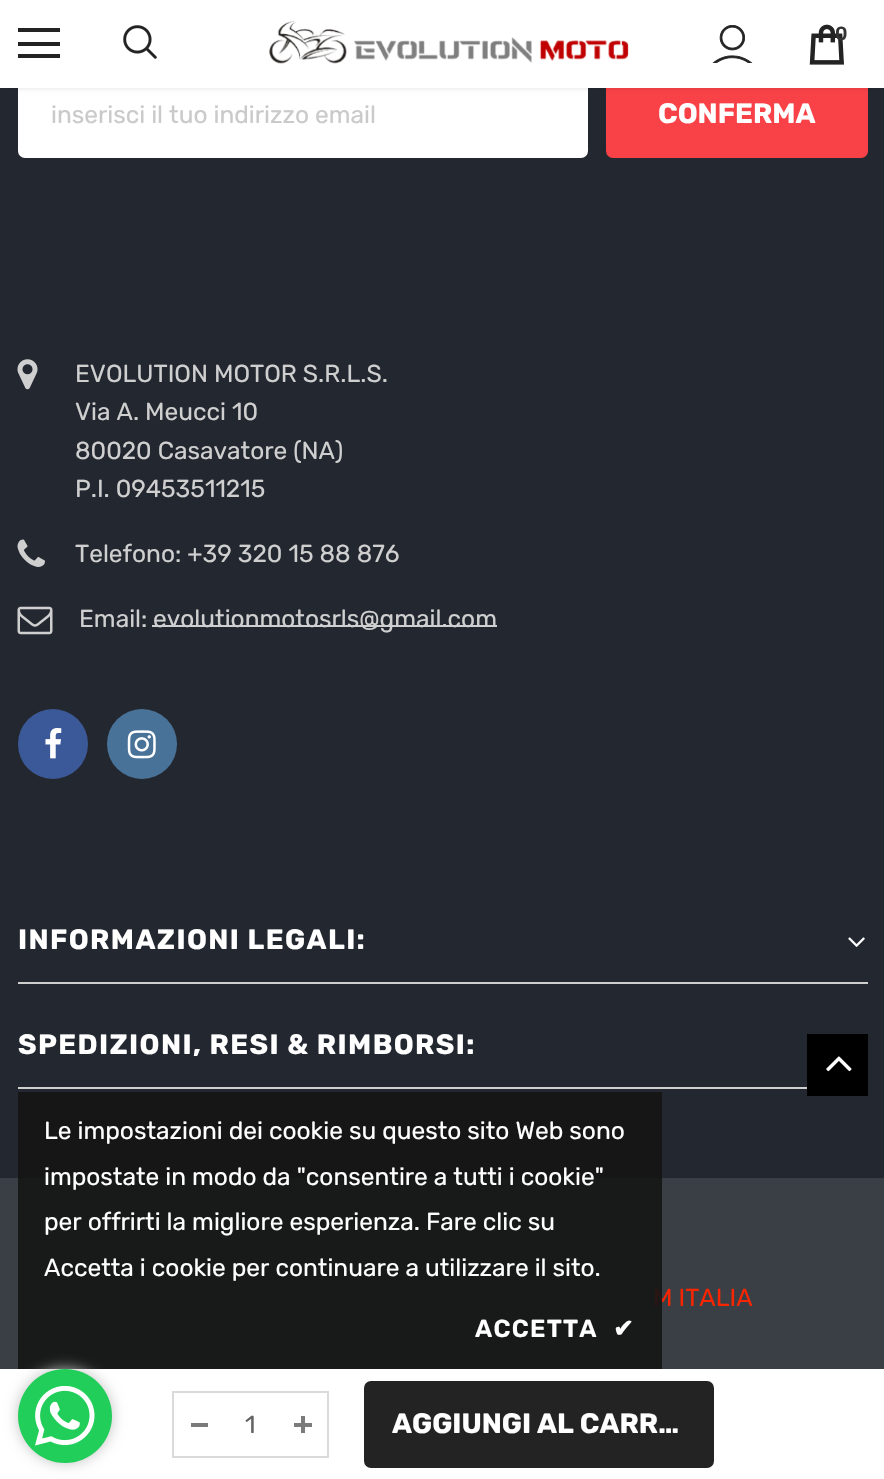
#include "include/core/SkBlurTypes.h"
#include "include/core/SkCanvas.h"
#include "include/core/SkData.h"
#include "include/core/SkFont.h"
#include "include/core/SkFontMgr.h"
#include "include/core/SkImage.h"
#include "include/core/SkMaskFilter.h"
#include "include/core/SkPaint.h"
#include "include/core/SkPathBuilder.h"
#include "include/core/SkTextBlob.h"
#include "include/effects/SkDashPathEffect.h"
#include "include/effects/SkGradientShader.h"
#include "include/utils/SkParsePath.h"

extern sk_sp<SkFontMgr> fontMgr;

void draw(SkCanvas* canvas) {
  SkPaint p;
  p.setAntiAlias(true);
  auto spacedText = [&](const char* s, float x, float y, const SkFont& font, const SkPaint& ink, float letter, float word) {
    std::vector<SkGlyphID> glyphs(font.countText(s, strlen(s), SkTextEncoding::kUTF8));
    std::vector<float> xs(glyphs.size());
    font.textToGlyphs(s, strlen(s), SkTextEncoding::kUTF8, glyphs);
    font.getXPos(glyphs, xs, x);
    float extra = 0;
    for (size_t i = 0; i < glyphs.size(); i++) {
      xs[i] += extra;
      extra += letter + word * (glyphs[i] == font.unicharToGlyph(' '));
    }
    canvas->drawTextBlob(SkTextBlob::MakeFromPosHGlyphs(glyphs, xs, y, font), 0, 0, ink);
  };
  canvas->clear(SkColorSetRGB(35, 40, 48));
  p.setColor(SK_ColorWHITE);
  canvas->drawRoundRect(SkRect::MakeLTRB(19, 71, 587, 157), 6, 6, p);
  p.setStyle(SkPaint::kStroke_Style);
  p.setStrokeWidth(2);
  canvas->drawRoundRect(SkRect::MakeLTRB(19, 71, 587, 157), 6, 6, p);
  p.setStyle(SkPaint::kFill_Style);
  p.setColor(SkColorSetRGB(248, 66, 72));
  canvas->drawRoundRect(SkRect::MakeLTRB(607, 71, 867, 157), 6, 6, p);
  p.setStyle(SkPaint::kStroke_Style);
  canvas->drawRoundRect(SkRect::MakeLTRB(607, 71, 867, 157), 6, 6, p);
  p.setStyle(SkPaint::kFill_Style);
  p.setColor(SkColorSetARGB(31, 0, 0, 0));
  p.setMaskFilter(SkMaskFilter::MakeBlur(kNormal_SkBlurStyle, 2.5f));
  canvas->drawRect(SkRect::MakeLTRB(5, 11, 880, 88), p);
  p.setMaskFilter(nullptr);
  p.setColor(SK_ColorWHITE);
  canvas->drawRect(SkRect::MakeLTRB(0, 0, 884, 88), p);
  p.setColor(SkColorSetRGB(35, 35, 35));
  canvas->drawRect(SkRect::MakeLTRB(18, 28, 60, 32), p);
  canvas->drawRect(SkRect::MakeLTRB(18, 42, 60, 46), p);
  canvas->drawRect(SkRect::MakeLTRB(18, 54, 60, 58), p);
  canvas->drawImageRect(SkImages::DeferredFromEncodedData(SkData::MakeFromFileName("images/1.png")), SkRect::MakeLTRB(123, 25, 157, 59), SkSamplingOptions());
  canvas->drawImageRect(SkImages::DeferredFromEncodedData(SkData::MakeFromFileName("images/2.png")), SkRect::MakeLTRB(269, 20, 629, 64), SkSamplingOptions());
  canvas->drawImageRect(SkImages::DeferredFromEncodedData(SkData::MakeFromFileName("images/3.png")), SkRect::MakeLTRB(712, 25, 753, 63), SkSamplingOptions());
  canvas->drawImageRect(SkImages::DeferredFromEncodedData(SkData::MakeFromFileName("images/4.png")), SkRect::MakeLTRB(809, 24, 844, 65), SkSamplingOptions());
  canvas->drawImageRect(SkImages::DeferredFromEncodedData(SkData::MakeFromFileName("images/5.png")), SkRect::MakeLTRB(17, 359, 38, 390), SkSamplingOptions());
  canvas->drawImageRect(SkImages::DeferredFromEncodedData(SkData::MakeFromFileName("images/6.png")), SkRect::MakeLTRB(17, 539, 45, 567), SkSamplingOptions());
  canvas->drawImageRect(SkImages::DeferredFromEncodedData(SkData::MakeFromFileName("images/7.png")), SkRect::MakeLTRB(17, 606, 53, 635), SkSamplingOptions());
  p.setColor(SkColorSetRGB(207, 207, 208));
  canvas->drawRect(SkRect::MakeLTRB(152, 625, 497, 627), p);
  p.setColor(SkColorSetRGB(59, 89, 152));
  canvas->drawCircle(53, 744, 35, p);
  canvas->drawImageRect(SkImages::DeferredFromEncodedData(SkData::MakeFromFileName("images/8.png")), SkRect::MakeLTRB(45, 728, 62, 759), SkSamplingOptions());
  p.setColor(SkColorSetRGB(73, 114, 153));
  canvas->drawCircle(142, 744, 35, p);
  canvas->drawImageRect(SkImages::DeferredFromEncodedData(SkData::MakeFromFileName("images/9.png")), SkRect::MakeLTRB(127, 730, 156, 759), SkSamplingOptions());
  p.setColor(SkColorSetRGB(207, 207, 208));
  canvas->drawRect(SkRect::MakeLTRB(18, 982, 868, 984), p);
  canvas->drawImageRect(SkImages::DeferredFromEncodedData(SkData::MakeFromFileName("images/10.png")), SkRect::MakeLTRB(848, 937, 865, 947), SkSamplingOptions());
  canvas->drawRect(SkRect::MakeLTRB(18, 1087, 807, 1089), p);
  p.setColor(SkColorSetRGB(58, 62, 69));
  canvas->drawRect(SkRect::MakeLTRB(0, 1178, 884, 1369), p);
  p.setColor(SK_ColorBLACK);
  canvas->drawRect(SkRect::MakeLTRB(807, 1034, 868, 1096), p);
  canvas->drawImageRect(SkImages::DeferredFromEncodedData(SkData::MakeFromFileName("images/11.png")), SkRect::MakeLTRB(826, 1056, 852, 1072), SkSamplingOptions());
  p.setColor(SK_ColorWHITE);
  canvas->drawRect(SkRect::MakeLTRB(0, 1369, 884, 1479), p);
  p.setStyle(SkPaint::kStroke_Style);
  p.setColor(SkColorSetRGB(218, 218, 218));
  canvas->drawRect(SkRect::MakeLTRB(173, 1392, 328, 1457), p);
  p.setStyle(SkPaint::kFill_Style);
  p.setColor(SkColorSetRGB(123, 123, 123));
  canvas->drawRect(SkRect::MakeLTRB(191, 1423, 208, 1427), p);
  canvas->drawRect(SkRect::MakeLTRB(294, 1423, 312, 1427), p);
  canvas->drawRect(SkRect::MakeLTRB(301, 1416, 305, 1433), p);
  p.setColor(SkColorSetRGB(35, 35, 35));
  canvas->drawRoundRect(SkRect::MakeLTRB(365, 1382, 713, 1467), 6, 6, p);
  p.setStyle(SkPaint::kStroke_Style);
  canvas->drawRoundRect(SkRect::MakeLTRB(365, 1382, 713, 1467), 6, 6, p);
  SkFont font1(fontMgr->matchFamilyStyle("Rubik", SkFontStyle(500, SkFontStyle::kNormal_Width, SkFontStyle::kUpright_Slant)), 19);
  font1.setSubpixel(true);
  p.setStyle(SkPaint::kFill_Style);
  p.setColor(SkColorSetRGB(50, 50, 50));
  canvas->drawString("0", 835, 40, font1, p);
  SkFont font2(fontMgr->matchFamilyStyle("Rubik", SkFontStyle::Normal()), 24.5f);
  font2.setSubpixel(true);
  p.setColor(SkColorSetRGB(202, 202, 202));
  canvas->drawString("inserisci il tuo indirizzo email", 51, 123, font2, p);
  SkFont font3(fontMgr->matchFamilyStyle("Rubik", SkFontStyle::Bold()), 28);
  font3.setSubpixel(true);
  p.setColor(SK_ColorWHITE);
  canvas->drawString("CONFERMA", 658, 123, font3, p);
  p.setColor(SkColorSetRGB(207, 207, 208));
  canvas->drawString("EVOLUTION MOTOR S.R.L.S.", 75, 382, font2, p);
  canvas->drawString("Via A. Meucci 10", 75, 420, font2, p);
  canvas->drawString("80020 Casavatore (NA)", 75, 459, font2, p);
  canvas->drawString("P.I. 09453511215", 75, 497, font2, p);
  canvas->drawString("Telefono: +39 320 15 88 876", 75, 562, font2, p);
  canvas->drawString("Email:", 79, 627, font2, p);
  canvas->drawString("evolutionmotosrls@gmail.com", 153, 627, font2, p);
  p.setColor(SK_ColorWHITE);
  spacedText("INFORMAZIONI LEGALI:", 18, 949, font3, p, 1.4f, 0);
  spacedText("SPEDIZIONI, RESI & RIMBORSI:", 18, 1054, font3, p, 1.4f, 0);
  p.setColor(SkColorSetRGB(247, 37, 0));
  canvas->drawString("M ITALIA", 653, 1306, font2, p);
  p.setColor(SkColorSetARGB(230, 20, 20, 20));
  canvas->drawRect(SkRect::MakeLTRB(18, 1092, 662, 1369), p);
  p.setColor(SK_ColorWHITE);
  canvas->drawString("Le impostazioni dei cookie su questo sito Web sono", 44, 1139, font2, p);
  canvas->drawString("impostate in modo da \"consentire a tutti i cookie\"", 44, 1185, font2, p);
  canvas->drawString("per offrirti la migliore esperienza. Fare clic su", 44, 1230, font2, p);
  canvas->drawString("Accetta i cookie per continuare a utilizzare il sito.", 44, 1276, font2, p);
  SkFont font4(fontMgr->matchFamilyStyle("Rubik", SkFontStyle(600, SkFontStyle::kNormal_Width, SkFontStyle::kUpright_Slant)), 24.5f);
  font4.setSubpixel(true);
  spacedText("ACCETTA", 475, 1337, font4, p, 1.25f, 0);
  SkFont font5(fontMgr->matchFamilyStyle("DejaVu Sans", SkFontStyle::Bold()), 24.5f);
  font5.setSubpixel(true);
  spacedText("✔", 613, 1337, font5, p, 1.25f, 0);
  p.setColor(SkColorSetRGB(100, 100, 100));
  canvas->drawString("1", 245, 1433, font2, p);
  p.setColor(SK_ColorWHITE);
  canvas->drawString("AGGIUNGI AL CARR…", 392, 1433, font3, p);
  p.setColor(SkColorSetRGB(194, 194, 194));
  p.setMaskFilter(SkMaskFilter::MakeBlur(kNormal_SkBlurStyle, 7));
  canvas->drawRoundRect(SkRect::MakeLTRB(18, 1369, 112, 1463), 47, 47, p);
  p.setMaskFilter(nullptr);
  p.setColor(SkColorSetRGB(34, 206, 90));
  canvas->drawCircle(65, 1416, 47, p);
  canvas->drawImageRect(SkImages::DeferredFromEncodedData(SkData::MakeFromFileName("images/12.png")), SkRect::MakeLTRB(35, 1386, 95, 1446), SkSamplingOptions());
}
